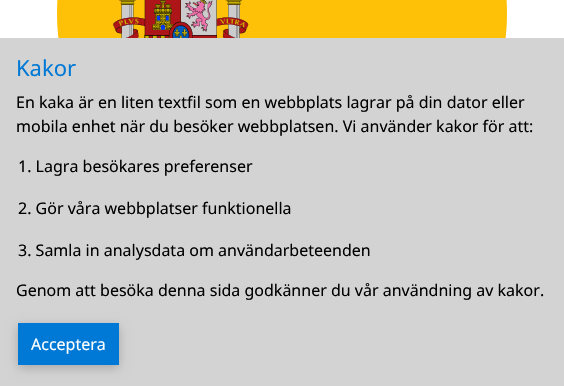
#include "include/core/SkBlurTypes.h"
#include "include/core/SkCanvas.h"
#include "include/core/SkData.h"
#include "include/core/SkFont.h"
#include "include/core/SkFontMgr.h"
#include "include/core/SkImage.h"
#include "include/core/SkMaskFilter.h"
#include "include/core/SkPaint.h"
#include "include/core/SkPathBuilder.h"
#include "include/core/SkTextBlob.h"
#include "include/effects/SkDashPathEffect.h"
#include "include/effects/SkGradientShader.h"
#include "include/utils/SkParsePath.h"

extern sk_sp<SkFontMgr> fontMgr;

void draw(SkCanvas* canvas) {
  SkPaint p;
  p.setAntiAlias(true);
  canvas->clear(SK_ColorWHITE);
  canvas->drawImageRect(SkImages::DeferredFromEncodedData(SkData::MakeFromFileName("images/1.png")), SkRect::MakeLTRB(57, 0, 507, 38), SkSamplingOptions());
  p.setColor(SkColorSetRGB(211, 211, 211));
  canvas->drawRect(SkRect::MakeLTRB(0, 38, 564, 386), p);
  p.setColor(SkColorSetARGB(51, 0, 0, 0));
  p.setMaskFilter(SkMaskFilter::MakeBlur(kNormal_SkBlurStyle, 5));
  canvas->drawRect(SkRect::MakeLTRB(18, 326, 119, 368), p);
  p.setMaskFilter(nullptr);
  p.setColor(SkColorSetRGB(0, 121, 214));
  canvas->drawRect(SkRect::MakeLTRB(18, 323, 119, 365), p);
  SkFont font1(fontMgr->matchFamilyStyle("Noto Sans", SkFontStyle::Normal()), 22);
  font1.setSubpixel(true);
  canvas->drawString("Kakor", 16, 76, font1, p);
  SkFont font2(fontMgr->matchFamilyStyle("Noto Sans", SkFontStyle::Normal()), 16);
  font2.setSubpixel(true);
  p.setColor(SK_ColorBLACK);
  canvas->drawString("En kaka är en liten textfil som en webbplats lagrar på din dator eller", 16, 108, font2, p);
  canvas->drawString("mobila enhet när du besöker webbplatsen. Vi använder kakor för att:", 16, 132, font2, p);
  canvas->drawString("1. Lagra besökares preferenser", 18, 172, font2, p);
  canvas->drawString("2. Gör våra webbplatser funktionella", 18, 214, font2, p);
  canvas->drawString("3. Samla in analysdata om användarbeteenden", 18, 256, font2, p);
  canvas->drawString("Genom att besöka denna sida godkänner du vår användning av kakor.", 16, 296, font2, p);
  p.setColor(SK_ColorWHITE);
  canvas->drawString("Acceptera", 31, 350, font2, p);
}
